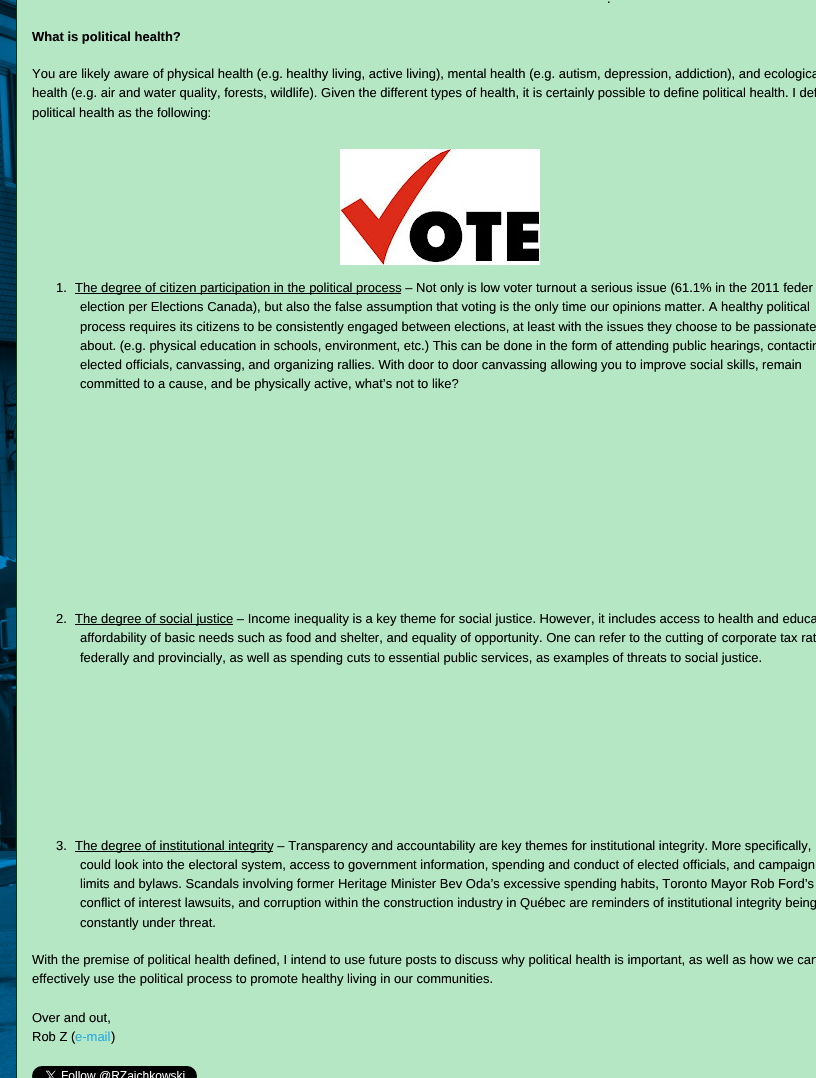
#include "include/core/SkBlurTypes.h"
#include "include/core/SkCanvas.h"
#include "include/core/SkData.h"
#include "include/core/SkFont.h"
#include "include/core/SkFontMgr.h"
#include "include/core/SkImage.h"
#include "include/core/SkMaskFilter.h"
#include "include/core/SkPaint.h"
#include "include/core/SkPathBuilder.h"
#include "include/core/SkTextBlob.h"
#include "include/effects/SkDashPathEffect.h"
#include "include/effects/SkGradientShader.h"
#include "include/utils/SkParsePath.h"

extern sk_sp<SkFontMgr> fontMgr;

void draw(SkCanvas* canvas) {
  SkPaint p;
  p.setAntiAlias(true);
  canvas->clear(SK_ColorWHITE);
  canvas->drawImageRect(SkImages::DeferredFromEncodedData(SkData::MakeFromFileName("images/1.png")), SkRect::MakeLTRB(0, 0, 16, 1078), SkSamplingOptions());
  p.setColor(SkColorSetRGB(181, 231, 197));
  canvas->drawRect(SkRect::MakeLTRB(16.5f, -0.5f, 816.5f, 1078.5f), p);
  p.setStyle(SkPaint::kStroke_Style);
  p.setStrokeWidth(1);
  p.setColor(SkColorSetRGB(17, 56, 4));
  canvas->drawRect(SkRect::MakeLTRB(16.5f, -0.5f, 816.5f, 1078.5f), p);
  canvas->drawImageRect(SkImages::DeferredFromEncodedData(SkData::MakeFromFileName("images/2.png")), SkRect::MakeLTRB(340, 149, 540, 265), SkSamplingOptions());
  p.setStyle(SkPaint::kFill_Style);
  p.setColor(SK_ColorBLACK);
  canvas->drawRect(SkRect::MakeLTRB(75, 293, 401, 294), p);
  canvas->drawRect(SkRect::MakeLTRB(75, 624, 233, 625), p);
  canvas->drawRect(SkRect::MakeLTRB(75, 851, 273, 852), p);
  canvas->drawImageRect(SkImages::DeferredFromEncodedData(SkData::MakeFromFileName("images/3.png")), SkRect::MakeLTRB(32, 1066, 197, 1078), SkSamplingOptions());
  SkFont font1(fontMgr->matchFamilyStyle("Liberation Sans", SkFontStyle::Normal()), 13);
  font1.setSubpixel(true);
  canvas->drawString(".", 607, 3, font1, p);
  SkFont font2(fontMgr->matchFamilyStyle("Liberation Sans", SkFontStyle::Bold()), 13);
  font2.setSubpixel(true);
  canvas->drawString("What is political health?", 32, 41, font2, p);
  canvas->drawString("You are likely aware of physical health (e.g. healthy living, active living), mental health (e.g. autism, depression, addiction), and ecologica", 32, 78, font1, p);
  canvas->drawString("health (e.g. air and water quality, forests, wildlife). Given the different types of health, it is certainly possible to define political health. I def", 32, 97, font1, p);
  canvas->drawString("political health as the following:", 32, 117, font1, p);
  canvas->drawString("1.", 56, 292, font1, p);
  canvas->drawString("The degree of citizen participation in the political process – Not only is low voter turnout a serious issue (61.1% in the 2011 feder", 75, 292, font1, p);
  canvas->drawString("election per Elections Canada), but also the false assumption that voting is the only time our opinions matter. A healthy political", 80, 311, font1, p);
  canvas->drawString("process requires its citizens to be consistently engaged between elections, at least with the issues they choose to be passionate", 80, 331, font1, p);
  canvas->drawString("about. (e.g. physical education in schools, environment, etc.) This can be done in the form of attending public hearings, contactin", 80, 350, font1, p);
  canvas->drawString("elected officials, canvassing, and organizing rallies. With door to door canvassing allowing you to improve social skills, remain", 80, 369, font1, p);
  canvas->drawString("committed to a cause, and be physically active, what’s not to like?", 80, 388, font1, p);
  canvas->drawString("2.", 56, 623, font1, p);
  canvas->drawString("The degree of social justice – Income inequality is a key theme for social justice. However, it includes access to health and educa", 75, 623, font1, p);
  canvas->drawString("affordability of basic needs such as food and shelter, and equality of opportunity. One can refer to the cutting of corporate tax rat", 80, 642, font1, p);
  canvas->drawString("federally and provincially, as well as spending cuts to essential public services, as examples of threats to social justice.", 80, 662, font1, p);
  canvas->drawString("3.", 56, 850, font1, p);
  canvas->drawString("The degree of institutional integrity – Transparency and accountability are key themes for institutional integrity. More specifically,", 75, 850, font1, p);
  canvas->drawString("could look into the electoral system, access to government information, spending and conduct of elected officials, and campaign", 80, 869, font1, p);
  canvas->drawString("limits and bylaws. Scandals involving former Heritage Minister Bev Oda’s excessive spending habits, Toronto Mayor Rob Ford’s", 80, 888, font1, p);
  canvas->drawString("conflict of interest lawsuits, and corruption within the construction industry in Québec are reminders of institutional integrity being", 80, 907, font1, p);
  canvas->drawString("constantly under threat.", 80, 927, font1, p);
  canvas->drawString("With the premise of political health defined, I intend to use future posts to discuss why political health is important, as well as how we can", 32, 964, font1, p);
  canvas->drawString("effectively use the political process to promote healthy living in our communities.", 32, 983, font1, p);
  canvas->drawString("Over and out,", 32, 1022, font1, p);
  canvas->drawString("Rob Z (", 32, 1041, font1, p);
  p.setColor(SkColorSetRGB(41, 170, 225));
  canvas->drawString("e-mail", 75, 1041, font1, p);
  p.setColor(SK_ColorBLACK);
  canvas->drawString(")", 111, 1041, font1, p);
}
